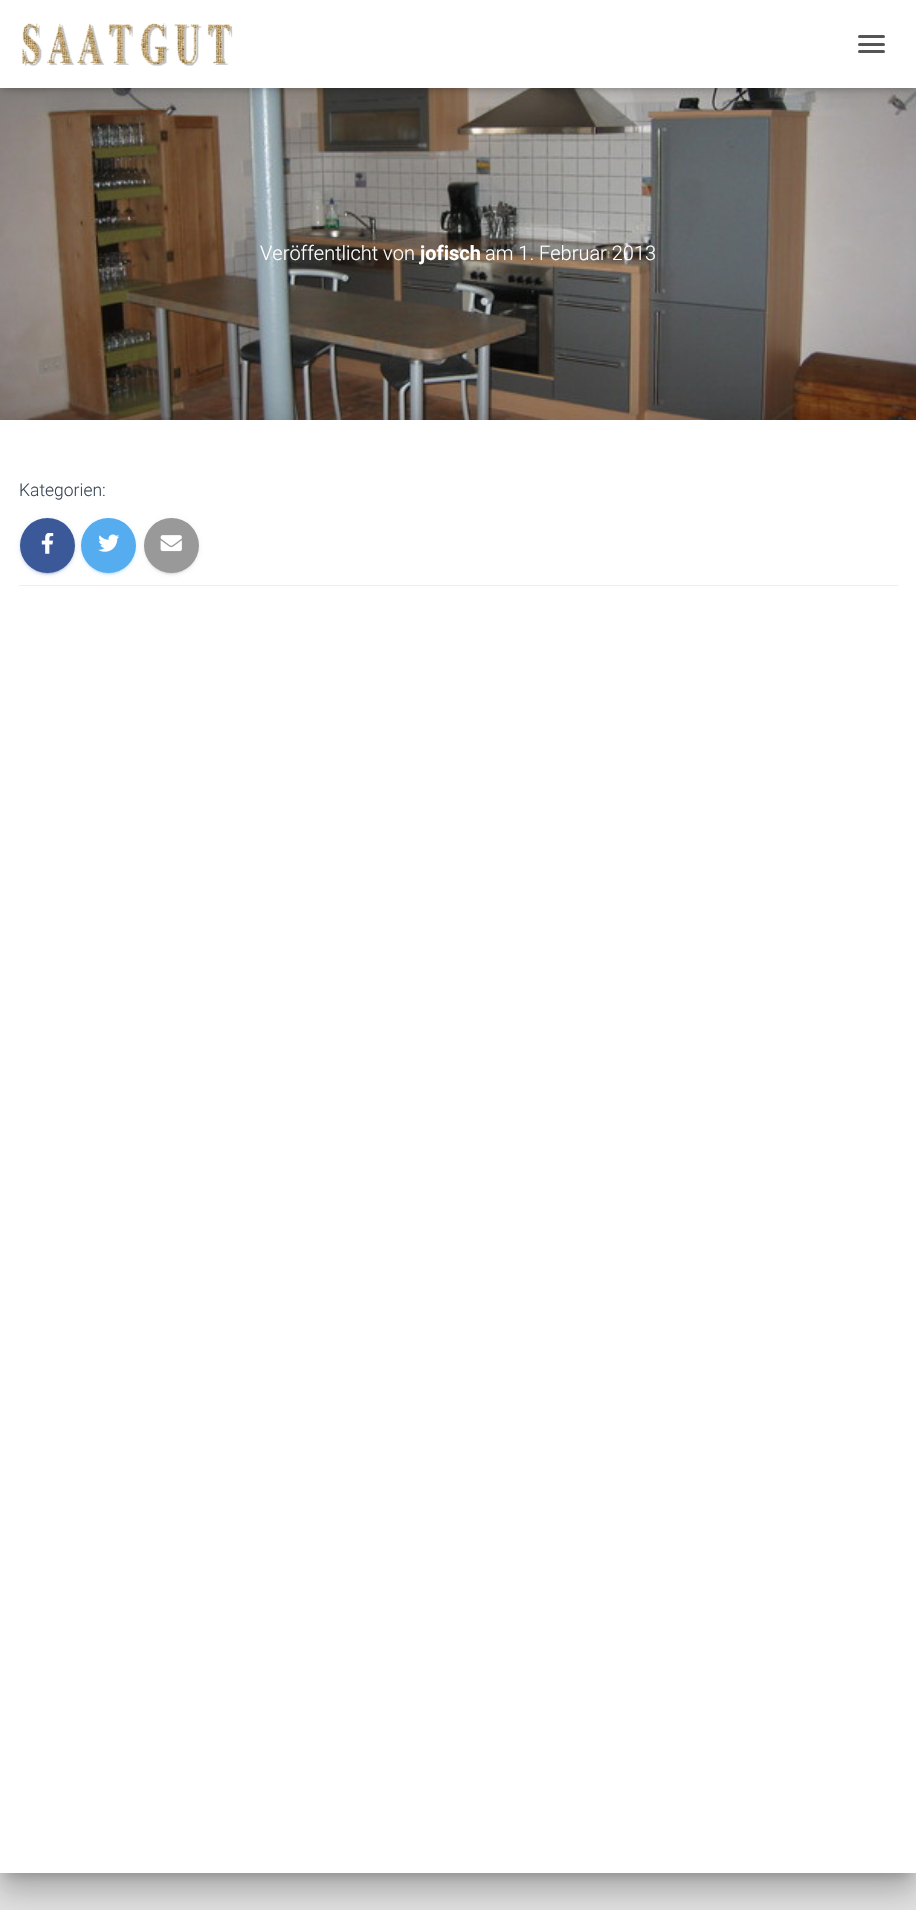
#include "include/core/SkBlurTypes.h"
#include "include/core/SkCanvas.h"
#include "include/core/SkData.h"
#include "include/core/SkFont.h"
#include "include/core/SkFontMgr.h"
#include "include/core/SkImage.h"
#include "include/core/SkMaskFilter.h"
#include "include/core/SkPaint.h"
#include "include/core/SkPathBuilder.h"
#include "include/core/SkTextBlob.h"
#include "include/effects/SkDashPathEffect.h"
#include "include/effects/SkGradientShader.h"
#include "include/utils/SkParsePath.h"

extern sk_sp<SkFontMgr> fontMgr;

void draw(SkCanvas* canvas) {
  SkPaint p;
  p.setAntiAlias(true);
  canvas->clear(SkColorSetRGB(229, 229, 229));
  canvas->drawImageRect(SkImages::DeferredFromEncodedData(SkData::MakeFromFileName("images/2.png")), SkRect::MakeLTRB(0, 88, 916, 420), SkSamplingOptions());
  p.setColor(SkColorSetARGB(26, 0, 0, 0));
  p.setMaskFilter(SkMaskFilter::MakeBlur(kNormal_SkBlurStyle, 3));
  canvas->drawRect(SkRect::MakeLTRB(3, 8, 914, 90), p);
  p.setMaskFilter(nullptr);
  p.setColor(SkColorSetARGB(31, 0, 0, 0));
  p.setMaskFilter(SkMaskFilter::MakeBlur(kNormal_SkBlurStyle, 6));
  canvas->drawRect(SkRect::MakeLTRB(0, 1, 916, 89), p);
  p.setMaskFilter(nullptr);
  p.setColor(SkColorSetARGB(107, 0, 0, 0));
  p.setMaskFilter(SkMaskFilter::MakeBlur(kNormal_SkBlurStyle, 6));
  canvas->drawRect(SkRect::MakeLTRB(8, 9, 909, 81), p);
  p.setMaskFilter(nullptr);
  p.setColor(SK_ColorWHITE);
  canvas->drawRect(SkRect::MakeLTRB(0, 0, 916, 88), p);
  canvas->drawImageRect(SkImages::DeferredFromEncodedData(SkData::MakeFromFileName("images/1.png")), SkRect::MakeLTRB(21, 23, 233, 66), SkSamplingOptions());
  p.setColor(SkColorSetRGB(85, 85, 85));
  canvas->drawRoundRect(SkRect::MakeLTRB(858, 35, 885, 38), 1.5f, 1.5f, p);
  canvas->drawRoundRect(SkRect::MakeLTRB(858, 43, 885, 46), 1.5f, 1.5f, p);
  canvas->drawRoundRect(SkRect::MakeLTRB(858, 50, 885, 53), 1.5f, 1.5f, p);
  p.setColor(SkColorSetARGB(51, 0, 0, 0));
  p.setMaskFilter(SkMaskFilter::MakeBlur(kNormal_SkBlurStyle, 6));
  canvas->drawRect(SkRect::MakeLTRB(6, 436, 910, 1876), p);
  p.setMaskFilter(nullptr);
  p.setColor(SkColorSetARGB(31, 0, 0, 0));
  p.setMaskFilter(SkMaskFilter::MakeBlur(kNormal_SkBlurStyle, 19));
  canvas->drawRect(SkRect::MakeLTRB(-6, 421, 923, 1886), p);
  p.setMaskFilter(nullptr);
  p.setColor(SkColorSetARGB(36, 0, 0, 0));
  p.setMaskFilter(SkMaskFilter::MakeBlur(kNormal_SkBlurStyle, 15));
  canvas->drawRect(SkRect::MakeLTRB(-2, 438, 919, 1895), p);
  p.setMaskFilter(nullptr);
  p.setColor(SK_ColorWHITE);
  canvas->drawRect(SkRect::MakeLTRB(0, 420, 916, 1873), p);
  p.setColor(SkColorSetARGB(31, 59, 89, 152));
  p.setMaskFilter(SkMaskFilter::MakeBlur(kNormal_SkBlurStyle, 3));
  canvas->drawRoundRect(SkRect::MakeLTRB(20, 519, 75, 574), 27.5f, 27.5f, p);
  p.setMaskFilter(nullptr);
  p.setColor(SkColorSetARGB(51, 59, 89, 152));
  p.setMaskFilter(SkMaskFilter::MakeBlur(kNormal_SkBlurStyle, 0.5f));
  canvas->drawRoundRect(SkRect::MakeLTRB(23, 524, 73, 574), 25, 25, p);
  p.setMaskFilter(nullptr);
  p.setColor(SkColorSetARGB(36, 59, 89, 152));
  p.setMaskFilter(SkMaskFilter::MakeBlur(kNormal_SkBlurStyle, 1));
  canvas->drawRoundRect(SkRect::MakeLTRB(20, 520, 75, 575), 27.5f, 27.5f, p);
  p.setMaskFilter(nullptr);
  p.setColor(SkColorSetRGB(59, 89, 152));
  canvas->drawCircle(47.5f, 545.5f, 27.5f, p);
  canvas->drawImageRect(SkImages::DeferredFromEncodedData(SkData::MakeFromFileName("images/3.png")), SkRect::MakeLTRB(41, 533, 54, 554), SkSamplingOptions());
  p.setColor(SkColorSetARGB(31, 85, 172, 238));
  p.setMaskFilter(SkMaskFilter::MakeBlur(kNormal_SkBlurStyle, 3));
  canvas->drawRoundRect(SkRect::MakeLTRB(81, 519, 136, 574), 27.5f, 27.5f, p);
  p.setMaskFilter(nullptr);
  p.setColor(SkColorSetARGB(51, 85, 172, 238));
  p.setMaskFilter(SkMaskFilter::MakeBlur(kNormal_SkBlurStyle, 0.5f));
  canvas->drawRoundRect(SkRect::MakeLTRB(84, 524, 134, 574), 25, 25, p);
  p.setMaskFilter(nullptr);
  p.setColor(SkColorSetARGB(36, 85, 172, 238));
  p.setMaskFilter(SkMaskFilter::MakeBlur(kNormal_SkBlurStyle, 1));
  canvas->drawRoundRect(SkRect::MakeLTRB(81, 520, 136, 575), 27.5f, 27.5f, p);
  p.setMaskFilter(nullptr);
  p.setColor(SkColorSetRGB(85, 172, 238));
  canvas->drawCircle(108.5f, 545.5f, 27.5f, p);
  canvas->drawImageRect(SkImages::DeferredFromEncodedData(SkData::MakeFromFileName("images/4.png")), SkRect::MakeLTRB(98, 534, 120, 552), SkSamplingOptions());
  p.setColor(SkColorSetARGB(31, 153, 153, 153));
  p.setMaskFilter(SkMaskFilter::MakeBlur(kNormal_SkBlurStyle, 3));
  canvas->drawRoundRect(SkRect::MakeLTRB(144, 519, 199, 574), 27.5f, 27.5f, p);
  p.setMaskFilter(nullptr);
  p.setColor(SkColorSetARGB(51, 153, 153, 153));
  p.setMaskFilter(SkMaskFilter::MakeBlur(kNormal_SkBlurStyle, 0.5f));
  canvas->drawRoundRect(SkRect::MakeLTRB(146, 524, 196, 574), 25, 25, p);
  p.setMaskFilter(nullptr);
  p.setColor(SkColorSetARGB(36, 153, 153, 153));
  p.setMaskFilter(SkMaskFilter::MakeBlur(kNormal_SkBlurStyle, 1));
  canvas->drawRoundRect(SkRect::MakeLTRB(144, 520, 199, 575), 27.5f, 27.5f, p);
  p.setMaskFilter(nullptr);
  p.setColor(SkColorSetRGB(153, 153, 153));
  canvas->drawCircle(171.5f, 545.5f, 27.5f, p);
  canvas->drawImageRect(SkImages::DeferredFromEncodedData(SkData::MakeFromFileName("images/5.png")), SkRect::MakeLTRB(160, 535, 182, 552), SkSamplingOptions());
  p.setColor(SkColorSetRGB(238, 238, 238));
  canvas->drawRect(SkRect::MakeLTRB(19, 585, 898, 586), p);
  SkFont font1(fontMgr->matchFamilyStyle("Roboto", SkFontStyle(300, SkFontStyle::kNormal_Width, SkFontStyle::kUpright_Slant)), 20);
  font1.setSubpixel(true);
  p.setColor(SK_ColorWHITE);
  canvas->drawString("Veröffentlicht von", 260, 260, font1, p);
  SkFont font2(fontMgr->matchFamilyStyle("Roboto", SkFontStyle::Bold()), 20);
  font2.setSubpixel(true);
  canvas->drawString("jofisch", 420, 260, font2, p);
  canvas->drawString("am 1. Februar 2013", 485, 260, font1, p);
  SkFont font3(fontMgr->matchFamilyStyle("Roboto", SkFontStyle(300, SkFontStyle::kNormal_Width, SkFontStyle::kUpright_Slant)), 17.5f);
  font3.setSubpixel(true);
  p.setColor(SkColorSetRGB(60, 72, 88));
  canvas->drawString("Kategorien:", 19, 496, font3, p);
}
